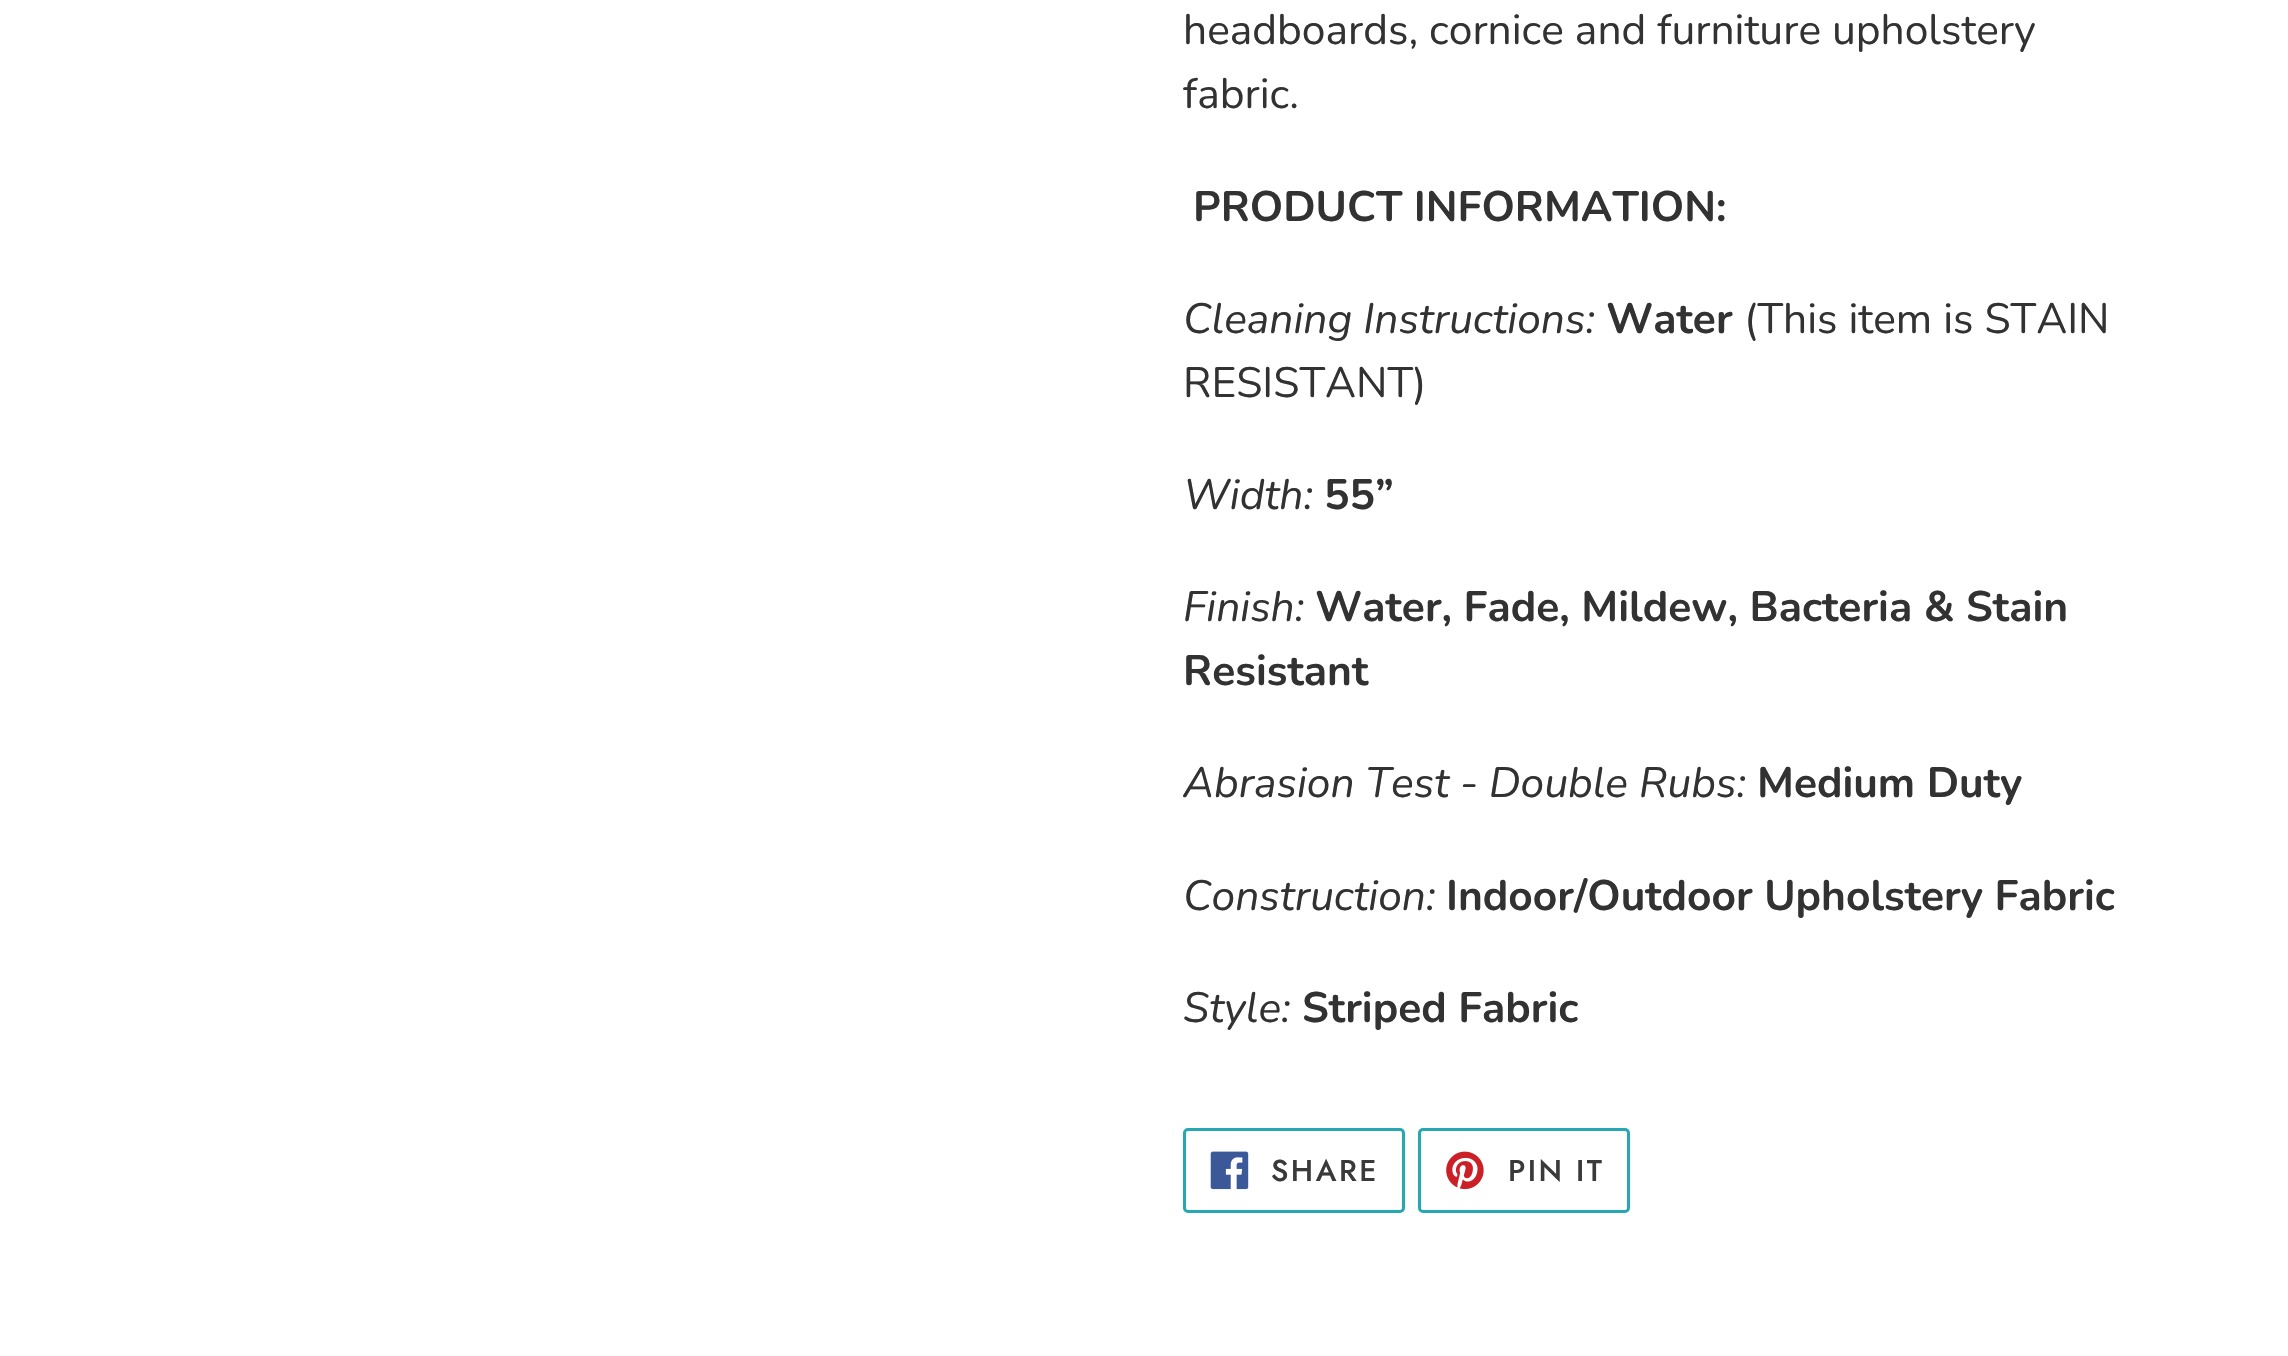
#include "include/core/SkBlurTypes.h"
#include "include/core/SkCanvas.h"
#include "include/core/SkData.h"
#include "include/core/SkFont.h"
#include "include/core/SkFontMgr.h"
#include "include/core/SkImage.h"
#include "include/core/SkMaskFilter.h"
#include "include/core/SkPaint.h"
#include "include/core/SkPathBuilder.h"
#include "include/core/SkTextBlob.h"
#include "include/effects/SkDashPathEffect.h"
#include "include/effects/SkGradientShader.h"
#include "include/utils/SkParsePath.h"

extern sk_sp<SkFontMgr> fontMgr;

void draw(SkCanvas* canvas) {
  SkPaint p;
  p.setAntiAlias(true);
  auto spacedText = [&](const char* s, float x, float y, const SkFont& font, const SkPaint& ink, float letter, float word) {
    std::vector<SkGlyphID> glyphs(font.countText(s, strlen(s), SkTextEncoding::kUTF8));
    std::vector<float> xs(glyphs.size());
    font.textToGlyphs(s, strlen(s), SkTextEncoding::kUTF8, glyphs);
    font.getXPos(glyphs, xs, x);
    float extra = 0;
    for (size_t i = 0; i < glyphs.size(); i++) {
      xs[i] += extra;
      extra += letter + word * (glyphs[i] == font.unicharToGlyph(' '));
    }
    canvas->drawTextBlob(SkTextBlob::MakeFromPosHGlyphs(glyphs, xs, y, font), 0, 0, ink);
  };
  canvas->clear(SK_ColorWHITE);
  p.setStyle(SkPaint::kStroke_Style);
  p.setStrokeWidth(3);
  p.setColor(SkColorSetRGB(38, 168, 179));
  canvas->drawRoundRect(SkRect::MakeLTRB(1184.5f, 1129.5f, 1403.5f, 1211.5f), 3.5f, 3.5f, p);
  canvas->drawImageRect(SkImages::DeferredFromEncodedData(SkData::MakeFromFileName("images/1.png")), SkRect::MakeLTRB(1210, 1151, 1249, 1190), SkSamplingOptions());
  canvas->drawRoundRect(SkRect::MakeLTRB(1419.5f, 1129.5f, 1628.5f, 1211.5f), 3.5f, 3.5f, p);
  canvas->drawImageRect(SkImages::DeferredFromEncodedData(SkData::MakeFromFileName("images/2.png")), SkRect::MakeLTRB(1446, 1151, 1484, 1190), SkSamplingOptions());
  SkFont font1(fontMgr->matchFamilyStyle("Nunito", SkFontStyle::Normal()), 42.5f);
  font1.setSubpixel(true);
  p.setStyle(SkPaint::kFill_Style);
  p.setColor(SkColorSetRGB(51, 50, 50));
  canvas->drawString("headboards, cornice and furniture upholstery", 1183, 44, font1, p);
  canvas->drawString("fabric.", 1183, 108, font1, p);
  SkFont font2(fontMgr->matchFamilyStyle("Nunito", SkFontStyle::Bold()), 42.5f);
  font2.setSubpixel(true);
  canvas->drawString("PRODUCT INFORMATION:", 1193, 221, font2, p);
  SkFont font3(fontMgr->matchFamilyStyle("Nunito", SkFontStyle::Italic()), 42.5f);
  font3.setSubpixel(true);
  canvas->drawString("Cleaning Instructions:", 1183, 333, font3, p);
  canvas->drawString("Water", 1606, 333, font2, p);
  canvas->drawString("(This item is STAIN", 1744, 333, font1, p);
  canvas->drawString("RESISTANT)", 1183, 397, font1, p);
  canvas->drawString("Width:", 1183, 509, font3, p);
  canvas->drawString("55”", 1324, 509, font2, p);
  canvas->drawString("Finish:", 1183, 621, font3, p);
  canvas->drawString("Water, Fade, Mildew, Bacteria & Stain", 1315, 621, font2, p);
  canvas->drawString("Resistant", 1183, 685, font2, p);
  canvas->drawString("Abrasion Test - Double Rubs:", 1183, 797, font3, p);
  canvas->drawString("Medium Duty", 1757, 797, font2, p);
  canvas->drawString("Construction:", 1183, 910, font3, p);
  canvas->drawString("Indoor/Outdoor Upholstery Fabric", 1446, 910, font2, p);
  canvas->drawString("Style:", 1183, 1022, font3, p);
  canvas->drawString("Striped Fabric", 1302, 1022, font2, p);
  SkFont font4(fontMgr->matchFamilyStyle("Jost", SkFontStyle(500, SkFontStyle::kNormal_Width, SkFontStyle::kUpright_Slant)), 30);
  font4.setSubpixel(true);
  p.setColor(SkColorSetRGB(58, 58, 58));
  spacedText("SHARE", 1271, 1181, font4, p, 2.5f, 0);
  spacedText("PIN IT", 1508, 1181, font4, p, 2.5f, 0);
}
